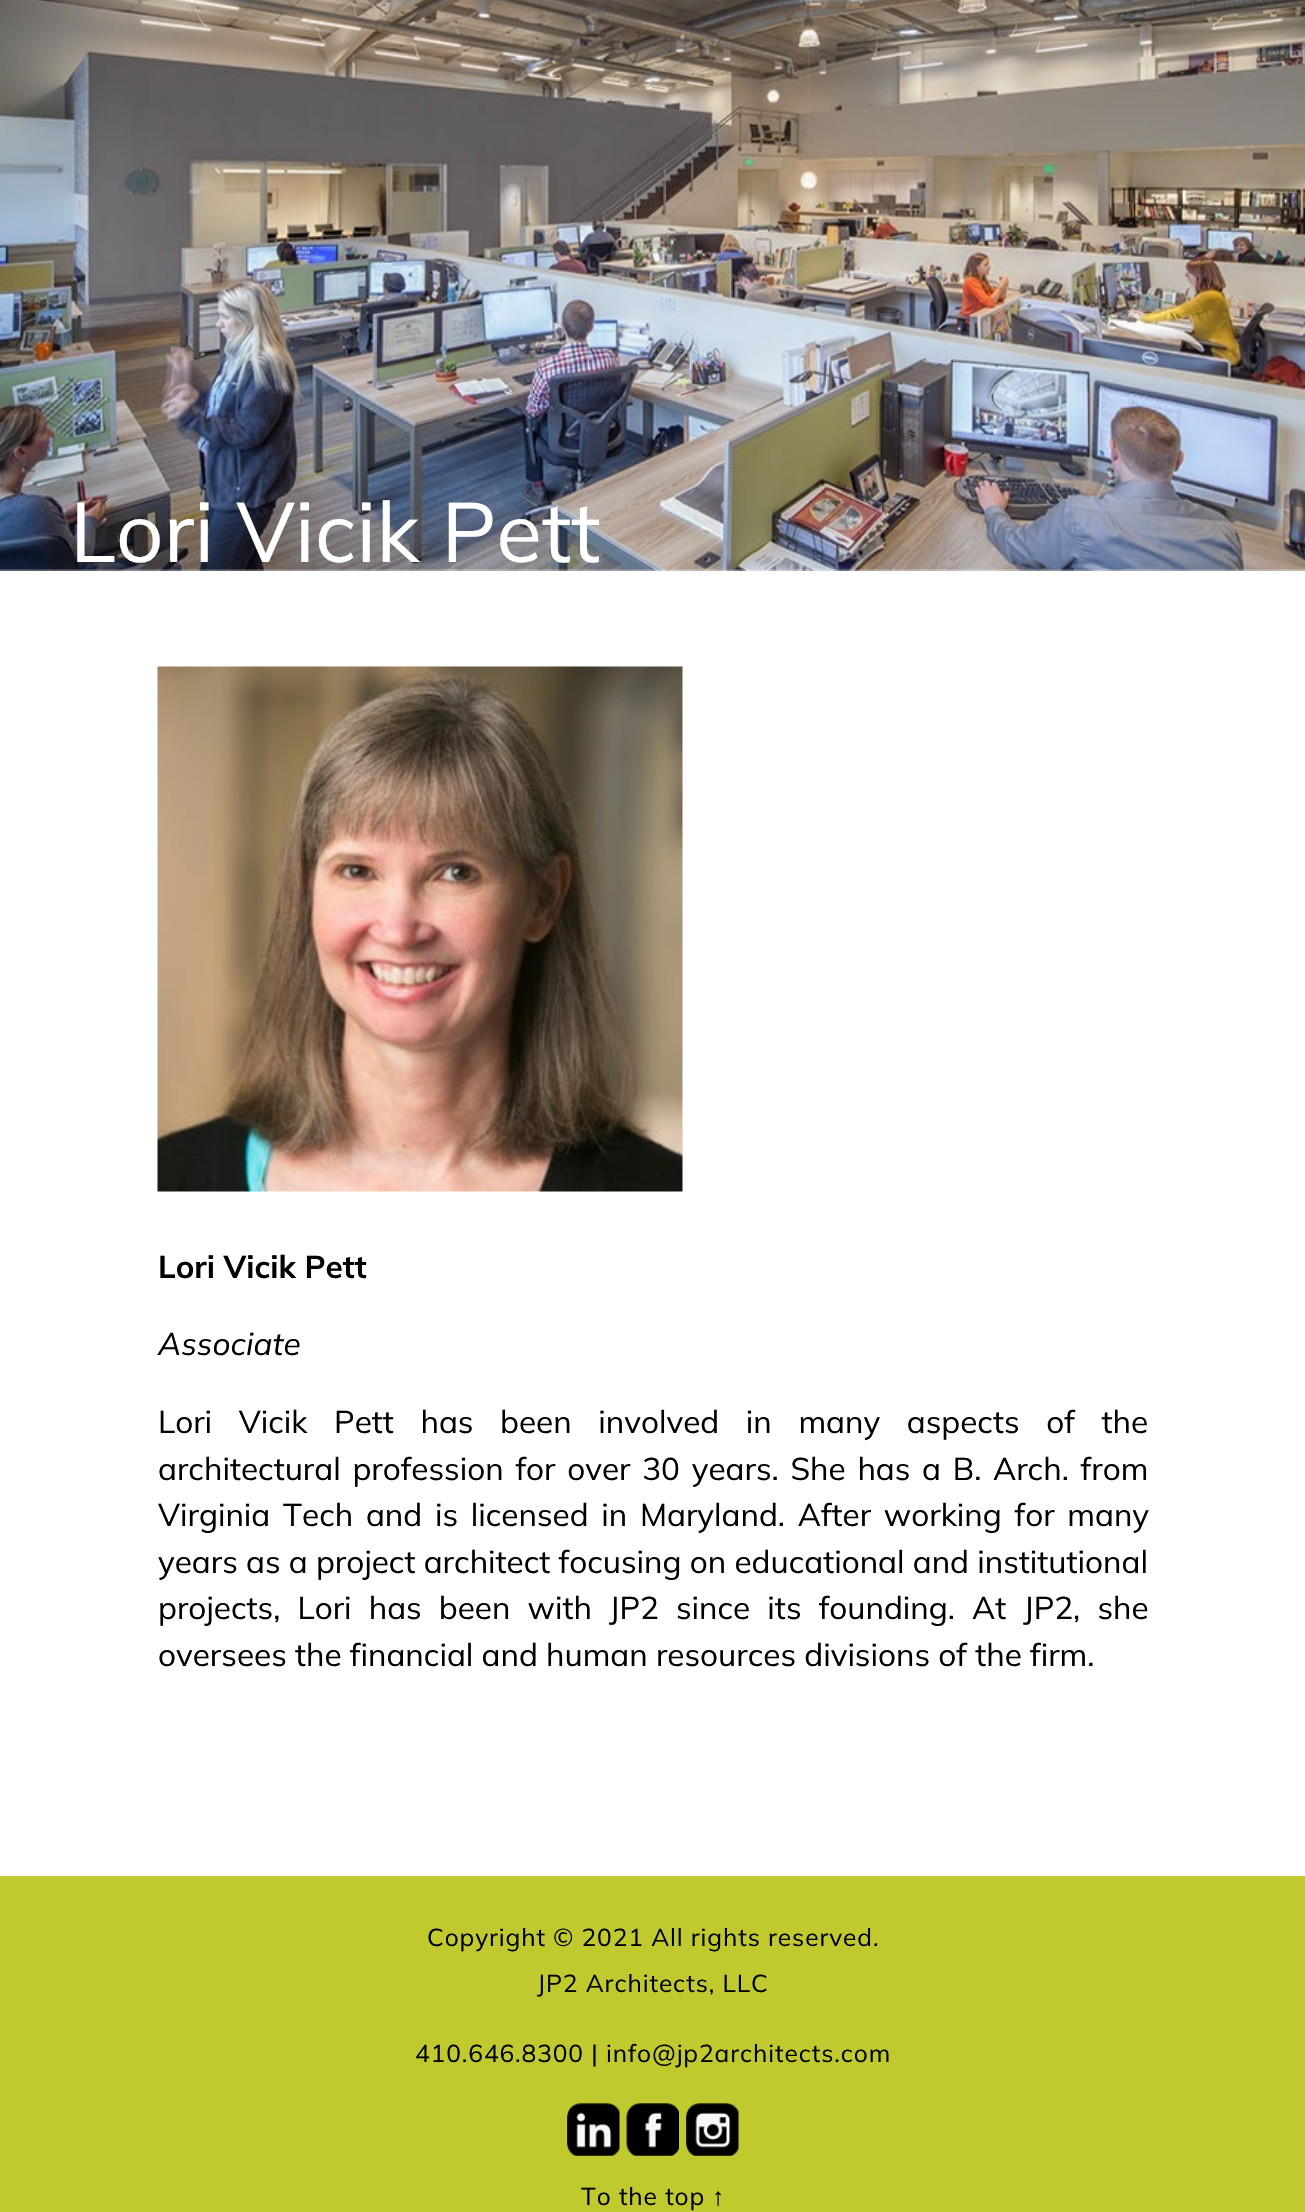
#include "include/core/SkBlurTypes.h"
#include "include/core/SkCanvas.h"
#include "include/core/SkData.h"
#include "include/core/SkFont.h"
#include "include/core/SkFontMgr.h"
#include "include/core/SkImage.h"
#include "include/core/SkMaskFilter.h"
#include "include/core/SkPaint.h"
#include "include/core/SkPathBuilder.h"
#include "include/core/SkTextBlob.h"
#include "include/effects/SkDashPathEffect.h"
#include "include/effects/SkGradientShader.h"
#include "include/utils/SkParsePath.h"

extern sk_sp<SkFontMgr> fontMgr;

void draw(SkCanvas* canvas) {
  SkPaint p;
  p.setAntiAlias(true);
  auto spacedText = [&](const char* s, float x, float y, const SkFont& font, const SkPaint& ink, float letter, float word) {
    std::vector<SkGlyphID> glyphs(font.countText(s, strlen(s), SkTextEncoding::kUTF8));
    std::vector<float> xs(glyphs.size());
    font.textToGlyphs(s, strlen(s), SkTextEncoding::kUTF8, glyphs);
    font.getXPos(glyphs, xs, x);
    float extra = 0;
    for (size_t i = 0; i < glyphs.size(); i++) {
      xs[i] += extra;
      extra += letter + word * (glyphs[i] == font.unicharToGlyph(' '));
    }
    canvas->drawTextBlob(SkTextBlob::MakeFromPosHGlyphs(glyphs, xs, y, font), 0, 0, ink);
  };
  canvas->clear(SK_ColorWHITE);
  canvas->drawImageRect(SkImages::DeferredFromEncodedData(SkData::MakeFromFileName("images/1.png")), SkRect::MakeLTRB(0, 0, 1305, 571), SkSamplingOptions());
  canvas->drawImageRect(SkImages::DeferredFromEncodedData(SkData::MakeFromFileName("images/2.png")), SkRect::MakeLTRB(157, 666, 683, 1192), SkSamplingOptions());
  p.setColor(SkColorSetRGB(192, 201, 46));
  canvas->drawRect(SkRect::MakeLTRB(0, 1876, 1305, 2212), p);
  canvas->drawImageRect(SkImages::DeferredFromEncodedData(SkData::MakeFromFileName("images/3.png")), SkRect::MakeLTRB(567, 2103, 620, 2156), SkSamplingOptions());
  canvas->drawImageRect(SkImages::DeferredFromEncodedData(SkData::MakeFromFileName("images/4.png")), SkRect::MakeLTRB(626, 2103, 679, 2156), SkSamplingOptions());
  canvas->drawImageRect(SkImages::DeferredFromEncodedData(SkData::MakeFromFileName("images/5.png")), SkRect::MakeLTRB(686, 2103, 739, 2156), SkSamplingOptions());
  SkFont font1(fontMgr->matchFamilyStyle("Mulish", SkFontStyle::Normal()), 84);
  font1.setSubpixel(true);
  p.setColor(SK_ColorWHITE);
  canvas->drawString("Lori Vicik Pett", 70, 562, font1, p);
  SkFont font2(fontMgr->matchFamilyStyle("Mulish", SkFontStyle::Bold()), 31.5f);
  font2.setSubpixel(true);
  p.setColor(SK_ColorBLACK);
  canvas->drawString("Lori Vicik Pett", 158, 1278, font2, p);
  SkFont font3(fontMgr->matchFamilyStyle("Mulish", SkFontStyle::Italic()), 31.5f);
  font3.setSubpixel(true);
  canvas->drawString("Associate", 158, 1355, font3, p);
  SkFont font4(fontMgr->matchFamilyStyle("Mulish", SkFontStyle::Normal()), 31.5f);
  font4.setSubpixel(true);
  spacedText("Lori Vicik Pett has been involved in many aspects of the", 158, 1433, font4, p, 0, 18.4f);
  spacedText("architectural profession for over 30 years. She has a B. Arch. from", 158, 1480, font4, p, 0, 3.5f);
  spacedText("Virginia Tech and is licensed in Maryland. After working for many", 158, 1526, font4, p, 0, 4.5f);
  canvas->drawString("years as a project architect focusing on educational and institutional", 158, 1573, font4, p);
  spacedText("projects, Lori has been with JP2 since its founding. At JP2, she", 158, 1619, font4, p, 0, 8.9f);
  canvas->drawString("oversees the financial and human resources divisions of the firm.", 158, 1666, font4, p);
  SkFont font5(fontMgr->matchFamilyStyle("Mulish", SkFontStyle::Normal()), 24.5f);
  font5.setSubpixel(true);
  spacedText("Copyright © 2021 All rights reserved.", 427, 1946, font5, p, 0.9f, 0);
  spacedText("JP2 Architects, LLC", 537, 1992, font5, p, 0.9f, 0);
  spacedText("410.646.8300 | info@jp2architects.com", 415, 2062, font5, p, 0.9f, 0);
  spacedText("To the top", 581, 2205, font5, p, 0.9f, 0);
  SkFont font6(fontMgr->matchFamilyStyle("Liberation Sans", SkFontStyle::Normal()), 24.5f);
  font6.setSubpixel(true);
  spacedText("↑", 712, 2205, font6, p, 0.9f, 0);
}
